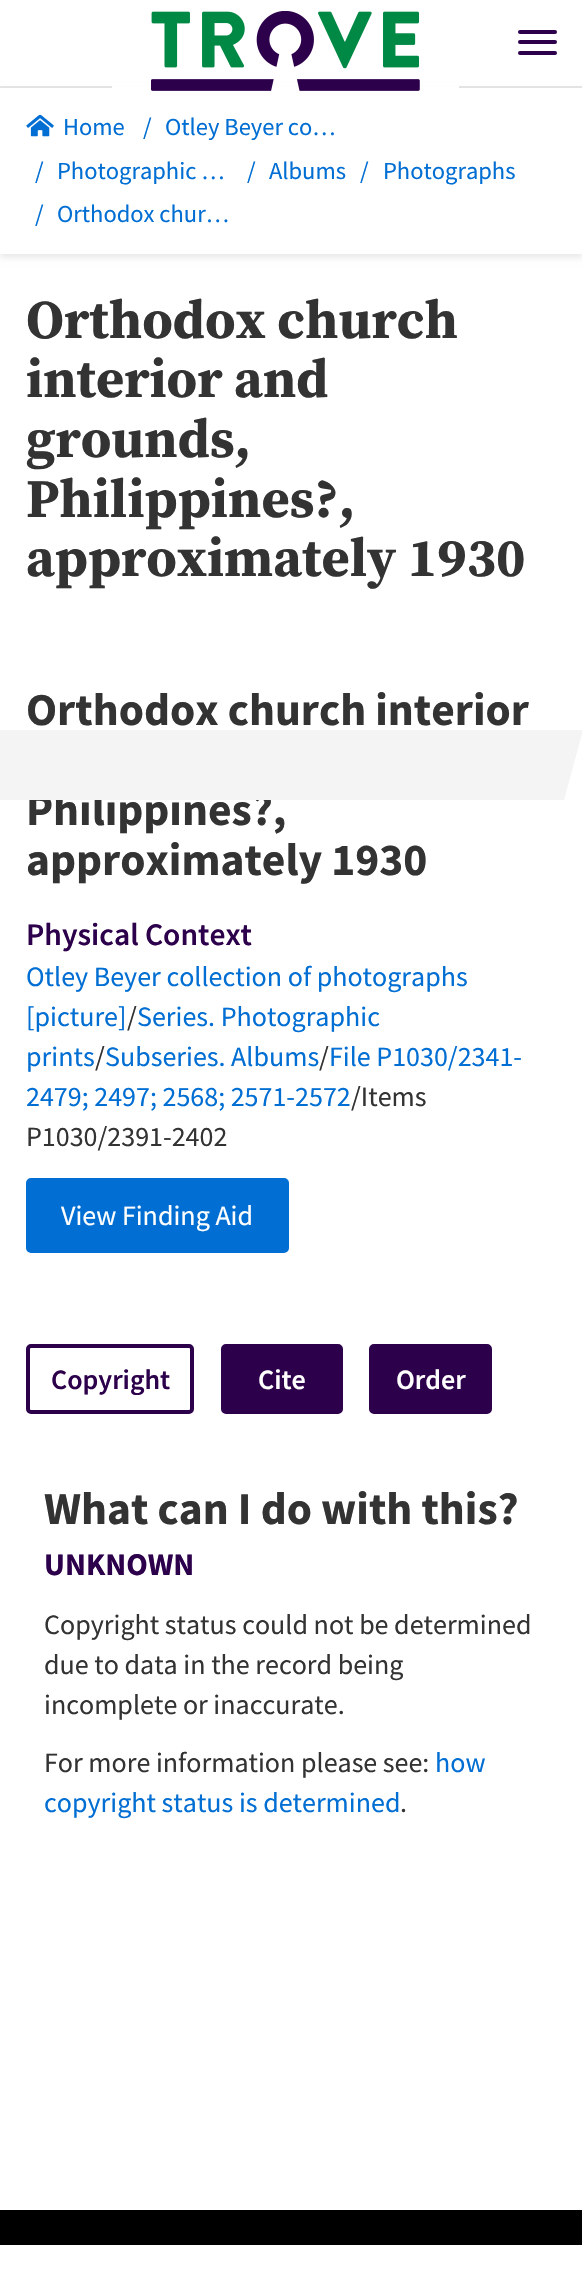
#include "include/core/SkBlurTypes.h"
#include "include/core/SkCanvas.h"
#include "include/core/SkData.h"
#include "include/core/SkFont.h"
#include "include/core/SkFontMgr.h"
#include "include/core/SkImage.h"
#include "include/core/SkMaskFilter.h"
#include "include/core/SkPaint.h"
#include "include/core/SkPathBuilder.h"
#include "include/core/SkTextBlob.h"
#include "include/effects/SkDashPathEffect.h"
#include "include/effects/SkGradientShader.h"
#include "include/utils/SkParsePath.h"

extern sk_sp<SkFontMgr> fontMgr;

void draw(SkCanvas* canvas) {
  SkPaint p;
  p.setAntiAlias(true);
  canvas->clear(SK_ColorWHITE);
  p.setColor(SkColorSetRGB(231, 231, 231));
  canvas->drawRect(SkRect::MakeLTRB(0, 86, 582, 88), p);
  p.setColor(SkColorSetARGB(26, 0, 0, 0));
  p.setMaskFilter(SkMaskFilter::MakeBlur(kNormal_SkBlurStyle, 3.5f));
  canvas->drawRect(SkRect::MakeLTRB(0, 91, 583, 257), p);
  p.setMaskFilter(nullptr);
  p.setColor(SK_ColorWHITE);
  canvas->drawRect(SkRect::MakeLTRB(112, 86, 459, 88), p);
  canvas->drawRect(SkRect::MakeLTRB(0, 88, 582, 254), p);
  canvas->drawImageRect(SkImages::DeferredFromEncodedData(SkData::MakeFromFileName("images/1.png")), SkRect::MakeLTRB(151, 11, 420, 91), SkSamplingOptions());
  p.setColor(SkColorSetRGB(45, 0, 75));
  canvas->drawRoundRect(SkRect::MakeLTRB(518, 30, 557, 34), 2, 2, p);
  canvas->drawRoundRect(SkRect::MakeLTRB(518, 40, 557, 44), 2, 2, p);
  canvas->drawRoundRect(SkRect::MakeLTRB(518, 51, 557, 55), 2, 2, p);
  canvas->drawImageRect(SkImages::DeferredFromEncodedData(SkData::MakeFromFileName("images/2.png")), SkRect::MakeLTRB(26, 114, 54, 137), SkSamplingOptions());
  p.setColor(SkColorSetRGB(1, 110, 211));
  canvas->drawRoundRect(SkRect::MakeLTRB(28, 1180, 287, 1251), 3, 3, p);
  p.setStyle(SkPaint::kStroke_Style);
  p.setStrokeWidth(4);
  canvas->drawRoundRect(SkRect::MakeLTRB(28, 1180, 287, 1251), 3, 3, p);
  p.setColor(SkColorSetRGB(45, 0, 75));
  canvas->drawRoundRect(SkRect::MakeLTRB(28, 1346, 192, 1412), 3, 3, p);
  p.setStyle(SkPaint::kFill_Style);
  canvas->drawRoundRect(SkRect::MakeLTRB(223, 1346, 341, 1412), 3, 3, p);
  p.setStyle(SkPaint::kStroke_Style);
  canvas->drawRoundRect(SkRect::MakeLTRB(223, 1346, 341, 1412), 3, 3, p);
  p.setStyle(SkPaint::kFill_Style);
  canvas->drawRoundRect(SkRect::MakeLTRB(371, 1346, 490, 1412), 3, 3, p);
  p.setStyle(SkPaint::kStroke_Style);
  canvas->drawRoundRect(SkRect::MakeLTRB(371, 1346, 490, 1412), 3, 3, p);
  p.setStyle(SkPaint::kFill_Style);
  p.setColor(SK_ColorBLACK);
  canvas->drawRect(SkRect::MakeLTRB(0, 2210, 582, 2245), p);
  SkFont font1(fontMgr->matchFamilyStyle("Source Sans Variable", SkFontStyle::Normal()), 24.5f);
  font1.setSubpixel(true);
  p.setColor(SkColorSetRGB(1, 110, 211));
  canvas->drawString("Home", 63, 135, font1, p);
  canvas->drawString("/", 143, 135, font1, p);
  canvas->drawString("Otley Beyer co…", 165, 135, font1, p);
  canvas->drawString("/", 35, 179, font1, p);
  canvas->drawString("Photographic …", 57, 179, font1, p);
  canvas->drawString("/", 247, 179, font1, p);
  canvas->drawString("Albums", 269, 179, font1, p);
  canvas->drawString("/", 360, 179, font1, p);
  canvas->drawString("Photographs", 383, 179, font1, p);
  canvas->drawString("/", 35, 222, font1, p);
  canvas->drawString("Orthodox chur…", 57, 222, font1, p);
  SkFont font2(fontMgr->matchFamilyStyle("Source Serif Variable", SkFontStyle::Bold()), 54.25f);
  font2.setSubpixel(true);
  p.setColor(SkColorSetRGB(51, 51, 51));
  canvas->drawString("Orthodox church", 26, 338, font2, p);
  canvas->drawString("interior and", 26, 397, font2, p);
  canvas->drawString("grounds,", 26, 457, font2, p);
  canvas->drawString("Philippines?,", 26, 517, font2, p);
  canvas->drawString("approximately 1930", 26, 576, font2, p);
  SkFont font3(fontMgr->matchFamilyStyle("Source Sans Variable", SkFontStyle::Bold()), 45.5f);
  font3.setSubpixel(true);
  canvas->drawString("Orthodox church interior", 26, 725, font3, p);
  canvas->drawString("Philippines?,", 26, 825, font3, p);
  canvas->drawString("approximately 1930", 26, 875, font3, p);
  SkFont font4(fontMgr->matchFamilyStyle("Source Sans Variable", SkFontStyle(600, SkFontStyle::kNormal_Width, SkFontStyle::kUpright_Slant)), 31.5f);
  font4.setSubpixel(true);
  p.setColor(SkColorSetRGB(45, 0, 75));
  canvas->drawString("Physical Context", 26, 945, font4, p);
  SkFont font5(fontMgr->matchFamilyStyle("Source Sans Variable", SkFontStyle::Normal()), 28);
  font5.setSubpixel(true);
  p.setColor(SkColorSetRGB(1, 110, 211));
  canvas->drawString("Otley Beyer collection of photographs", 26, 986, font5, p);
  canvas->drawString("[picture]", 26, 1026, font5, p);
  p.setColor(SkColorSetRGB(51, 51, 51));
  canvas->drawString("/", 127, 1026, font5, p);
  p.setColor(SkColorSetRGB(1, 110, 211));
  canvas->drawString("Series. Photographic", 137, 1026, font5, p);
  canvas->drawString("prints", 26, 1066, font5, p);
  p.setColor(SkColorSetRGB(51, 51, 51));
  canvas->drawString("/", 95, 1066, font5, p);
  p.setColor(SkColorSetRGB(1, 110, 211));
  canvas->drawString("Subseries. Albums", 105, 1066, font5, p);
  p.setColor(SkColorSetRGB(51, 51, 51));
  canvas->drawString("/", 319, 1066, font5, p);
  p.setColor(SkColorSetRGB(1, 110, 211));
  canvas->drawString("File P1030/2341-", 329, 1066, font5, p);
  canvas->drawString("2479; 2497; 2568; 2571-2572", 26, 1106, font5, p);
  p.setColor(SkColorSetRGB(51, 51, 51));
  canvas->drawString("/Items", 351, 1106, font5, p);
  canvas->drawString("P1030/2391-2402", 26, 1146, font5, p);
  p.setColor(SK_ColorWHITE);
  canvas->drawString("View Finding Aid", 61, 1225, font5, p);
  p.setColor(SkColorSetRGB(244, 244, 244));
  canvas->drawPath(SkPathBuilder().moveTo(0, 730).lineTo(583, 730).lineTo(564, 800).lineTo(0, 800).close().detach(), p);
  SkFont font6(fontMgr->matchFamilyStyle("Source Sans Variable", SkFontStyle(600, SkFontStyle::kNormal_Width, SkFontStyle::kUpright_Slant)), 28);
  font6.setSubpixel(true);
  p.setColor(SkColorSetRGB(45, 0, 75));
  canvas->drawString("Copyright", 51, 1389, font6, p);
  p.setColor(SK_ColorWHITE);
  canvas->drawString("Cite", 258, 1389, font6, p);
  canvas->drawString("Order", 396, 1389, font6, p);
  p.setColor(SkColorSetRGB(51, 51, 51));
  canvas->drawString("What can I do with this?", 44, 1524, font3, p);
  SkFont font7(fontMgr->matchFamilyStyle("Source Sans Variable", SkFontStyle::Bold()), 31.5f);
  font7.setSubpixel(true);
  p.setColor(SkColorSetRGB(45, 0, 75));
  canvas->drawString("UNKNOWN", 44, 1575, font7, p);
  p.setColor(SkColorSetRGB(51, 51, 51));
  canvas->drawString("Copyright status could not be determined", 44, 1634, font5, p);
  canvas->drawString("due to data in the record being", 44, 1674, font5, p);
  canvas->drawString("incomplete or inaccurate.", 44, 1714, font5, p);
  canvas->drawString("For more information please see:", 44, 1772, font5, p);
  p.setColor(SkColorSetRGB(1, 110, 211));
  canvas->drawString("how", 435, 1772, font5, p);
  canvas->drawString("copyright status is determined", 44, 1812, font5, p);
  p.setColor(SkColorSetRGB(51, 51, 51));
  canvas->drawString(".", 400, 1812, font5, p);
}
